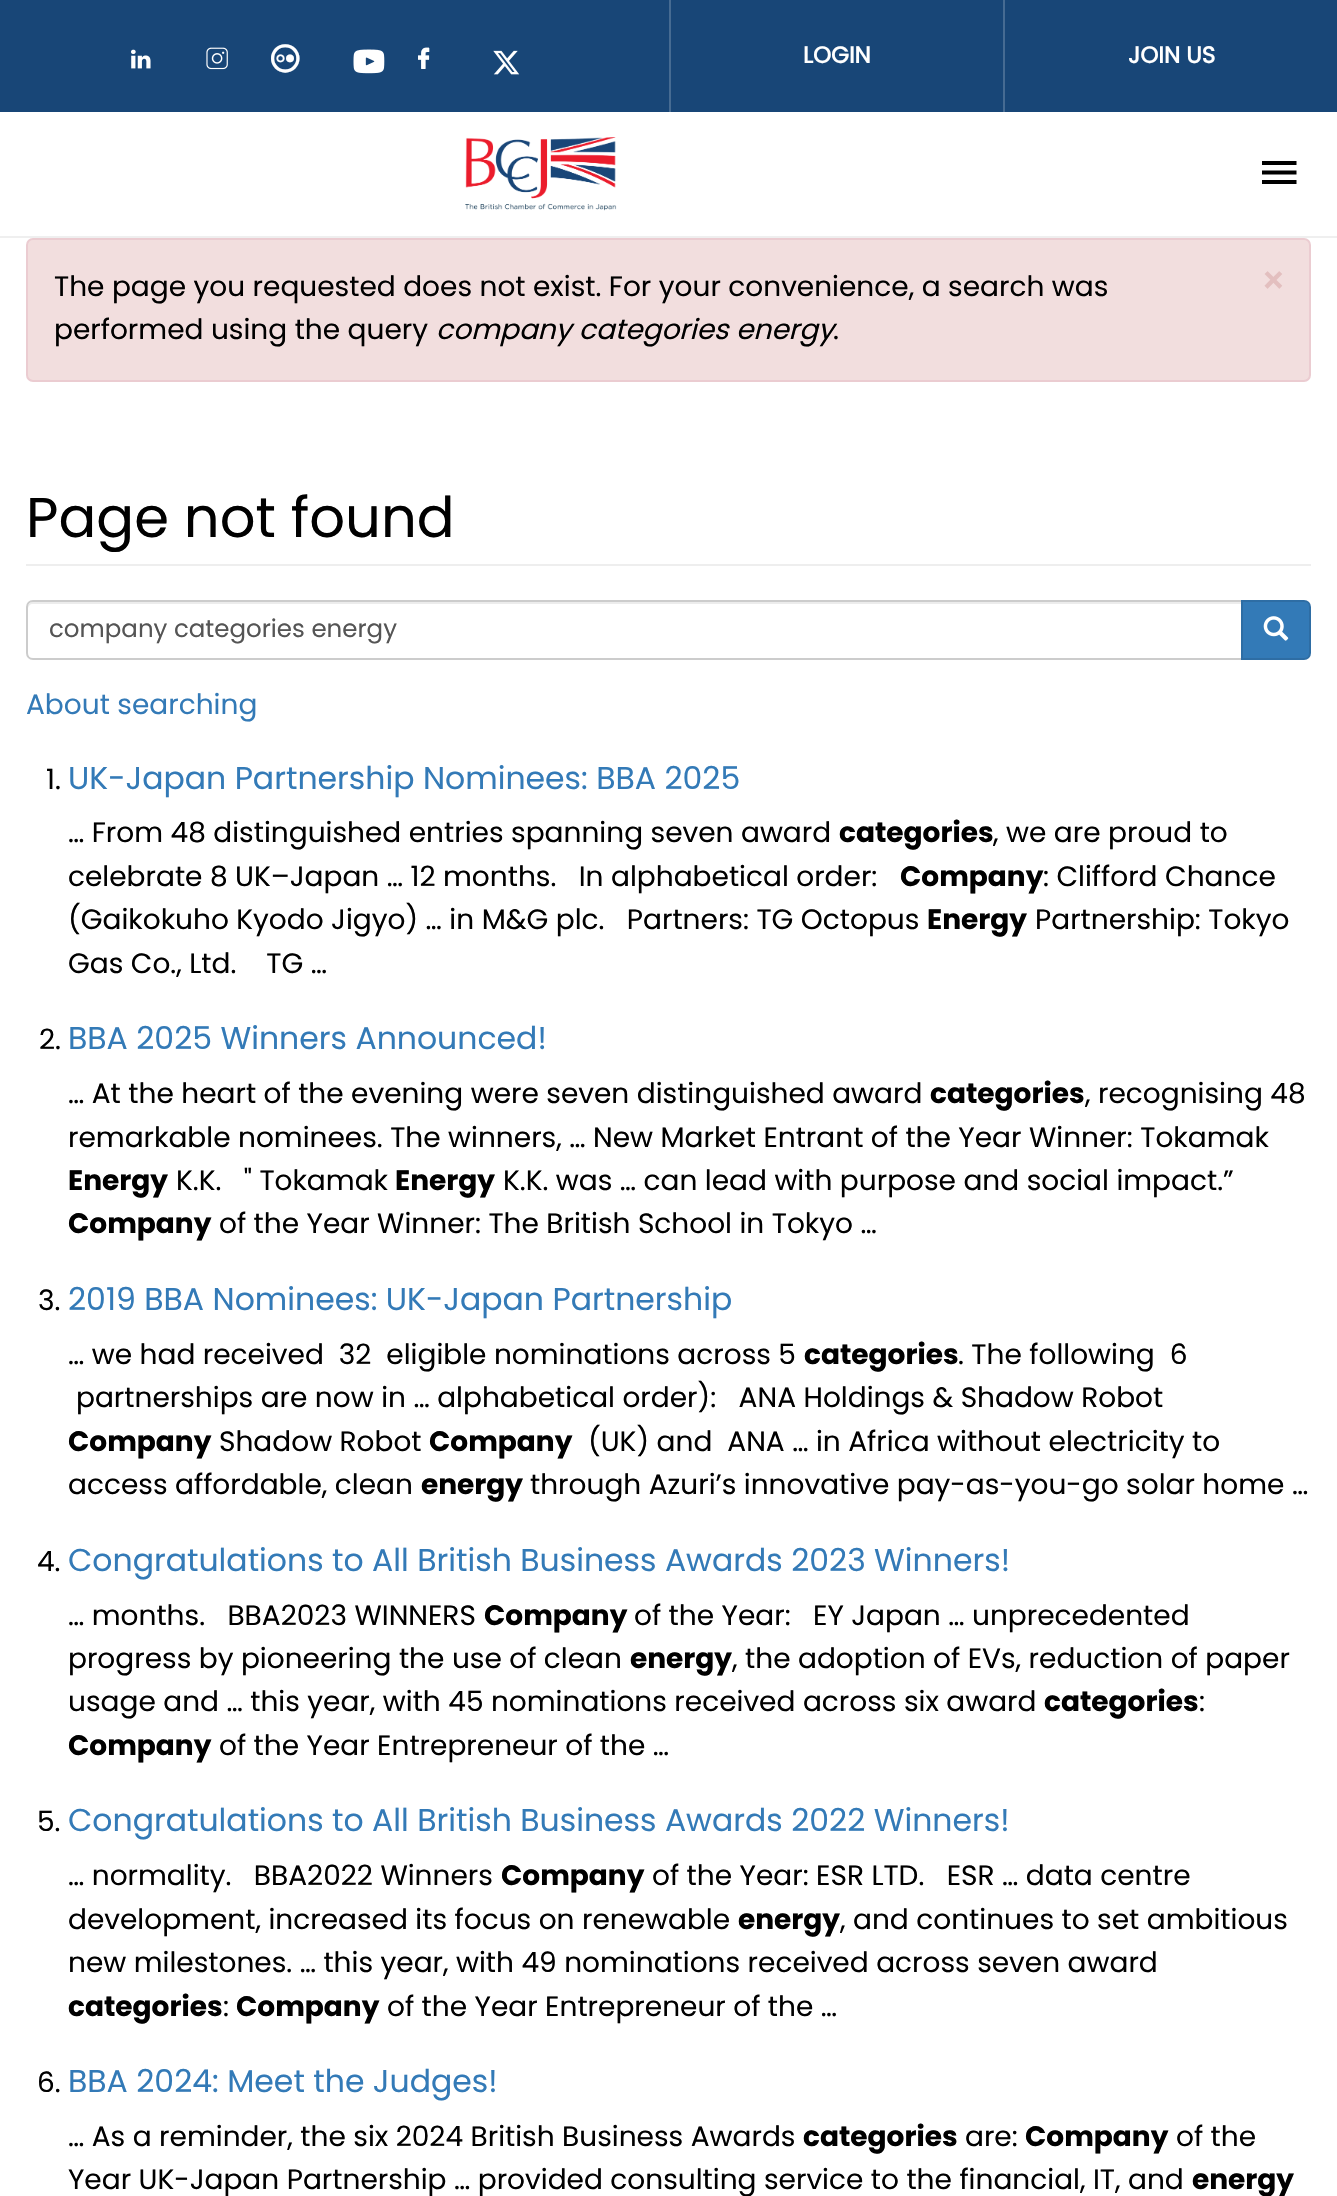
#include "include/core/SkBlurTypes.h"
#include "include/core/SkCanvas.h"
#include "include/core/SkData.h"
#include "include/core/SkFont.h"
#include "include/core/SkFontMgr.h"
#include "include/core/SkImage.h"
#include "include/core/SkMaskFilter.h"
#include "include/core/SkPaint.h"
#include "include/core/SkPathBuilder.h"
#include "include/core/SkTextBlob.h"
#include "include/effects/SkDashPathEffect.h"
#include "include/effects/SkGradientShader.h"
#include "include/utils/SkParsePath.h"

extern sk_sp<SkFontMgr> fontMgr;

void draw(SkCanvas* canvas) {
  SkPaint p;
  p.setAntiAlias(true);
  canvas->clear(SK_ColorWHITE);
  p.setColor(SkColorSetRGB(239, 239, 239));
  canvas->drawRect(SkRect::MakeLTRB(0, 236, 1337, 238), p);
  p.setColor(SkColorSetRGB(24, 70, 119));
  canvas->drawRect(SkRect::MakeLTRB(0, 0, 1337, 112), p);
  canvas->drawImageRect(SkImages::DeferredFromEncodedData(SkData::MakeFromFileName("images/1.png")), SkRect::MakeLTRB(131, 49, 151, 69), SkSamplingOptions());
  canvas->drawImageRect(SkImages::DeferredFromEncodedData(SkData::MakeFromFileName("images/2.png")), SkRect::MakeLTRB(206, 47, 228, 70), SkSamplingOptions());
  canvas->drawImageRect(SkImages::DeferredFromEncodedData(SkData::MakeFromFileName("images/3.png")), SkRect::MakeLTRB(353, 49, 385, 74), SkSamplingOptions());
  canvas->drawImageRect(SkImages::DeferredFromEncodedData(SkData::MakeFromFileName("images/4.png")), SkRect::MakeLTRB(493, 50, 520, 75), SkSamplingOptions());
  p.setColor(SkColorSetRGB(70, 107, 146));
  canvas->drawRect(SkRect::MakeLTRB(669, 0, 671, 112), p);
  canvas->drawRect(SkRect::MakeLTRB(1003, 0, 1005, 112), p);
  canvas->drawImageRect(SkImages::DeferredFromEncodedData(SkData::MakeFromFileName("images/5.png")), SkRect::MakeLTRB(465, 137, 617, 211), SkSamplingOptions());
  p.setColor(SK_ColorBLACK);
  canvas->drawPath(SkPathBuilder().moveTo(1262, 161).lineTo(1262, 165).lineTo(1296.5f, 165).lineTo(1296.5f, 161).close().moveTo(1262, 174.5f).lineTo(1296.5f, 174.5f).lineTo(1296.5f, 170.5f).lineTo(1262, 170.5f).close().moveTo(1262, 184).lineTo(1296.5f, 184).lineTo(1296.5f, 180).lineTo(1262, 180).close().detach(), p);
  p.setColor(SkColorSetRGB(242, 222, 222));
  canvas->drawRoundRect(SkRect::MakeLTRB(27, 239, 1310, 381), 6, 6, p);
  p.setStyle(SkPaint::kStroke_Style);
  p.setStrokeWidth(2);
  p.setColor(SkColorSetRGB(235, 204, 209));
  canvas->drawRoundRect(SkRect::MakeLTRB(27, 239, 1310, 381), 6, 6, p);
  p.setStyle(SkPaint::kFill_Style);
  p.setColor(SkColorSetRGB(238, 238, 238));
  canvas->drawRect(SkRect::MakeLTRB(26, 564, 1311, 566), p);
  p.setColor(SkColorSetRGB(236, 236, 236));
  canvas->drawPath(SkPathBuilder().moveTo(33, 604).lineTo(1241, 604).lineTo(1241, 602).lineTo(33, 602).cubicTo(30, 602, 28, 604, 28, 607).lineTo(28, 609).cubicTo(28, 606, 30, 604, 33, 604).close().detach(), p);
  p.setStyle(SkPaint::kStroke_Style);
  p.setColor(SkColorSetRGB(204, 204, 204));
  canvas->drawPath(SkPathBuilder().moveTo(33, 601).lineTo(1242, 601).lineTo(1242, 659).lineTo(33, 659).cubicTo(29.5f, 659, 27, 656.5f, 27, 653).lineTo(27, 607).cubicTo(27, 603.5f, 29.5f, 601, 33, 601).close().detach(), p);
  p.setStyle(SkPaint::kFill_Style);
  p.setColor(SkColorSetRGB(51, 122, 183));
  canvas->drawPath(SkPathBuilder().moveTo(1242, 601).lineTo(1304, 601).cubicTo(1307.5f, 601, 1310, 603.5f, 1310, 607).lineTo(1310, 653).cubicTo(1310, 656.5f, 1307.5f, 659, 1304, 659).lineTo(1242, 659).close().detach(), p);
  p.setStyle(SkPaint::kStroke_Style);
  p.setColor(SkColorSetRGB(46, 109, 164));
  canvas->drawPath(SkPathBuilder().moveTo(1242, 601).lineTo(1304, 601).cubicTo(1307.5f, 601, 1310, 603.5f, 1310, 607).lineTo(1310, 653).cubicTo(1310, 656.5f, 1307.5f, 659, 1304, 659).lineTo(1242, 659).close().detach(), p);
  canvas->drawImageRect(SkImages::DeferredFromEncodedData(SkData::MakeFromFileName("images/6.png")), SkRect::MakeLTRB(1263, 616, 1289, 641), SkSamplingOptions());
  SkFont font1(fontMgr->matchFamilyStyle("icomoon", SkFontStyle::Normal()), 38);
  font1.setSubpixel(true);
  p.setStyle(SkPaint::kFill_Style);
  p.setColor(SK_ColorWHITE);
  canvas->drawString("~", 271, 75, font1, p);
  canvas->drawString("3", 418, 75, font1, p);
  SkFont font2(fontMgr->matchFamilyStyle("Poppins", SkFontStyle::Bold()), 23);
  font2.setSubpixel(true);
  canvas->drawString("LOGIN", 803, 63, font2, p);
  canvas->drawString("JOIN US", 1128, 63, font2, p);
  SkFont font3(fontMgr->matchFamilyStyle("Poppins", SkFontStyle::Normal()), 28);
  font3.setSubpixel(true);
  p.setColor(SK_ColorBLACK);
  canvas->drawString("The page you requested does not exist. For your convenience, a search was", 54, 296, font3, p);
  canvas->drawString("performed using the query", 54, 339, font3, p);
  SkFont font4(fontMgr->matchFamilyStyle("Poppins", SkFontStyle::Italic()), 28);
  font4.setSubpixel(true);
  canvas->drawString("company categories energy", 436, 339, font4, p);
  canvas->drawString(".", 833, 339, font3, p);
  SkFont font5(fontMgr->matchFamilyStyle("Poppins", SkFontStyle::Bold()), 37);
  font5.setSubpixel(true);
  p.setColor(SkColorSetRGB(227, 191, 191));
  canvas->drawString("×", 1261, 294, font5, p);
  SkFont font6(fontMgr->matchFamilyStyle("Poppins", SkFontStyle::Normal()), 56);
  font6.setSubpixel(true);
  p.setColor(SK_ColorBLACK);
  canvas->drawString("Page not found", 26, 537, font6, p);
  SkFont font7(fontMgr->matchFamilyStyle("Poppins", SkFontStyle::Normal()), 24.5f);
  font7.setSubpixel(true);
  p.setColor(SkColorSetRGB(85, 85, 85));
  canvas->drawString("company categories energy", 49, 637, font7, p);
  p.setColor(SkColorSetRGB(51, 122, 183));
  canvas->drawString("About searching", 26, 714, font3, p);
  p.setColor(SK_ColorBLACK);
  canvas->drawString("1.", 46, 789, font3, p);
  SkFont font8(fontMgr->matchFamilyStyle("Poppins", SkFontStyle::Normal()), 31.5f);
  font8.setSubpixel(true);
  p.setColor(SkColorSetRGB(51, 122, 183));
  canvas->drawString("UK-Japan Partnership Nominees: BBA 2025", 68, 789, font8, p);
  p.setColor(SK_ColorBLACK);
  canvas->drawString("… From 48 distinguished entries spanning seven award", 68, 842, font3, p);
  SkFont font9(fontMgr->matchFamilyStyle("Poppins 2", SkFontStyle::Bold()), 28);
  font9.setSubpixel(true);
  canvas->drawString("categories", 839, 842, font9, p);
  canvas->drawString(", we are proud to", 993, 842, font3, p);
  canvas->drawString("celebrate 8 UK–Japan … 12 months.   In alphabetical order:", 68, 886, font3, p);
  canvas->drawString("Company", 900, 886, font9, p);
  canvas->drawString(": Clifford Chance", 1043, 886, font3, p);
  canvas->drawString("(Gaikokuho Kyodo Jigyo) … in M&G plc.   Partners: TG Octopus", 68, 929, font3, p);
  canvas->drawString("Energy", 927, 929, font9, p);
  canvas->drawString("Partnership: Tokyo", 1035, 929, font3, p);
  canvas->drawString("Gas Co., Ltd.    TG …", 68, 973, font3, p);
  canvas->drawString("2.", 39, 1049, font3, p);
  p.setColor(SkColorSetRGB(51, 122, 183));
  canvas->drawString("BBA 2025 Winners Announced!", 68, 1049, font8, p);
  p.setColor(SK_ColorBLACK);
  canvas->drawString("… At the heart of the evening were seven distinguished award", 68, 1103, font3, p);
  canvas->drawString("categories", 930, 1103, font9, p);
  canvas->drawString(", recognising 48", 1085, 1103, font3, p);
  canvas->drawString("remarkable nominees. The winners, … New Market Entrant of the Year Winner: Tokamak", 68, 1147, font3, p);
  canvas->drawString("Energy", 68, 1190, font9, p);
  canvas->drawString("K.K.   \" Tokamak", 176, 1190, font3, p);
  canvas->drawString("Energy", 395, 1190, font9, p);
  canvas->drawString("K.K. was … can lead with purpose and social impact.”", 503, 1190, font3, p);
  canvas->drawString("Company", 68, 1233, font9, p);
  canvas->drawString("of the Year Winner: The British School in Tokyo …", 219, 1233, font3, p);
  canvas->drawString("3.", 38, 1310, font3, p);
  p.setColor(SkColorSetRGB(51, 122, 183));
  canvas->drawString("2019 BBA Nominees: UK-Japan Partnership", 68, 1310, font8, p);
  p.setColor(SK_ColorBLACK);
  canvas->drawString("… we had received  32  eligible nominations across 5", 68, 1364, font3, p);
  canvas->drawString("categories", 804, 1364, font9, p);
  canvas->drawString(". The following  6", 958, 1364, font3, p);
  canvas->drawString("partnerships are now in … alphabetical order):   ANA Holdings & Shadow Robot", 76, 1407, font3, p);
  canvas->drawString("Company", 68, 1451, font9, p);
  canvas->drawString("Shadow Robot", 219, 1451, font3, p);
  canvas->drawString("Company", 429, 1451, font9, p);
  canvas->drawString("(UK) and  ANA … in Africa without electricity to", 588, 1451, font3, p);
  canvas->drawString("access affordable, clean", 68, 1494, font3, p);
  canvas->drawString("energy", 421, 1494, font9, p);
  canvas->drawString("through Azuri’s innovative pay-as-you-go solar home …", 530, 1494, font3, p);
  canvas->drawString("4.", 37, 1571, font3, p);
  p.setColor(SkColorSetRGB(51, 122, 183));
  canvas->drawString("Congratulations to All British Business Awards 2023 Winners!", 68, 1571, font8, p);
  p.setColor(SK_ColorBLACK);
  canvas->drawString("… months.   BBA2023 WINNERS", 68, 1625, font3, p);
  canvas->drawString("Company", 484, 1625, font9, p);
  canvas->drawString("of the Year:   EY Japan … unprecedented", 634, 1625, font3, p);
  canvas->drawString("progress by pioneering the use of clean", 68, 1668, font3, p);
  canvas->drawString("energy", 630, 1668, font9, p);
  canvas->drawString(", the adoption of EVs, reduction of paper", 732, 1668, font3, p);
  canvas->drawString("usage and … this year, with 45 nominations received across six award", 68, 1711, font3, p);
  canvas->drawString("categories", 1044, 1711, font9, p);
  canvas->drawString(":", 1199, 1711, font3, p);
  canvas->drawString("Company", 68, 1755, font9, p);
  canvas->drawString("of the Year Entrepreneur of the …", 219, 1755, font3, p);
  canvas->drawString("5.", 37, 1831, font3, p);
  p.setColor(SkColorSetRGB(51, 122, 183));
  canvas->drawString("Congratulations to All British Business Awards 2022 Winners!", 68, 1831, font8, p);
  p.setColor(SK_ColorBLACK);
  canvas->drawString("… normality.   BBA2022 Winners", 68, 1885, font3, p);
  canvas->drawString("Company", 501, 1885, font9, p);
  canvas->drawString("of the Year: ESR LTD.   ESR … data centre", 652, 1885, font3, p);
  canvas->drawString("development, increased its focus on renewable", 68, 1929, font3, p);
  canvas->drawString("energy", 738, 1929, font9, p);
  canvas->drawString(", and continues to set ambitious", 840, 1929, font3, p);
  canvas->drawString("new milestones. … this year, with 49 nominations received across seven award", 68, 1972, font3, p);
  canvas->drawString("categories", 68, 2016, font9, p);
  canvas->drawString(":", 223, 2016, font3, p);
  canvas->drawString("Company", 236, 2016, font9, p);
  canvas->drawString("of the Year Entrepreneur of the …", 387, 2016, font3, p);
  canvas->drawString("6.", 37, 2092, font3, p);
  p.setColor(SkColorSetRGB(51, 122, 183));
  canvas->drawString("BBA 2024: Meet the Judges!", 68, 2092, font8, p);
  p.setColor(SK_ColorBLACK);
  canvas->drawString("… As a reminder, the six 2024 British Business Awards", 68, 2146, font3, p);
  canvas->drawString("categories", 803, 2146, font9, p);
  canvas->drawString("are:", 965, 2146, font3, p);
  canvas->drawString("Company", 1025, 2146, font9, p);
  canvas->drawString("of the", 1176, 2146, font3, p);
  canvas->drawString("Year UK-Japan Partnership … provided consulting service to the financial, IT, and", 68, 2189, font3, p);
  canvas->drawString("energy", 1192, 2189, font9, p);
}
